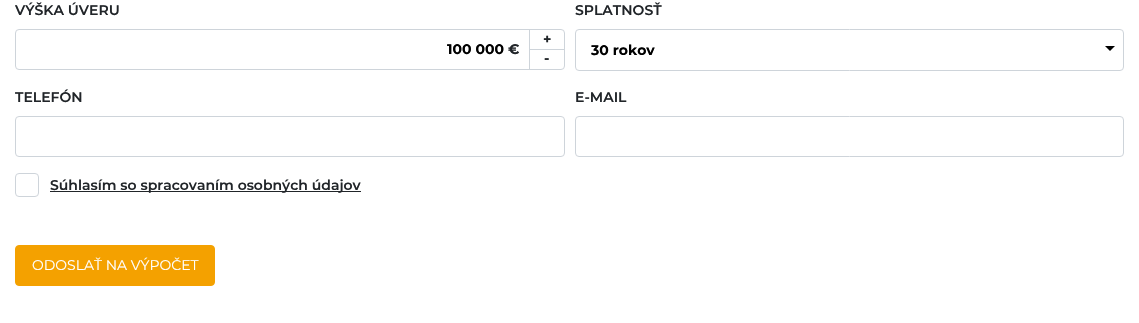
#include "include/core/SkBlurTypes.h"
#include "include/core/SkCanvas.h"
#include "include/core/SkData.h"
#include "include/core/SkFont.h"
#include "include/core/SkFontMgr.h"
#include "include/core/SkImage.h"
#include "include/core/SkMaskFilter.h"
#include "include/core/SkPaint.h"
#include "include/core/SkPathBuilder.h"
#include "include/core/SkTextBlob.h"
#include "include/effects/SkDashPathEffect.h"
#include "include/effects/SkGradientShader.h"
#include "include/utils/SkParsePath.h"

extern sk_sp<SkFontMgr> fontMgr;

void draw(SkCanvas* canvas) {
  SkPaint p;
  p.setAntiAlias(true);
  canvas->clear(SK_ColorWHITE);
  p.setStyle(SkPaint::kStroke_Style);
  p.setStrokeWidth(1);
  p.setColor(SkColorSetRGB(206, 212, 218));
  canvas->drawRoundRect(SkRect::MakeLTRB(15.5f, 29.5f, 564.5f, 69.5f), 3.5f, 3.5f, p);
  p.setStyle(SkPaint::kFill_Style);
  canvas->drawRect(SkRect::MakeLTRB(529, 29, 530, 69), p);
  canvas->drawRect(SkRect::MakeLTRB(530, 49, 565, 50), p);
  p.setStyle(SkPaint::kStroke_Style);
  canvas->drawRoundRect(SkRect::MakeLTRB(575.5f, 29.5f, 1123.5f, 70.5f), 3.5f, 3.5f, p);
  p.setStyle(SkPaint::kFill_Style);
  p.setColor(SK_ColorBLACK);
  canvas->drawPath(SkPathBuilder().moveTo(1105, 46).lineTo(1115, 46).lineTo(1110, 51).close().detach(), p);
  p.setStyle(SkPaint::kStroke_Style);
  p.setColor(SkColorSetRGB(206, 212, 218));
  canvas->drawRoundRect(SkRect::MakeLTRB(15.5f, 116.5f, 564.5f, 156.5f), 3.5f, 3.5f, p);
  canvas->drawRoundRect(SkRect::MakeLTRB(575.5f, 116.5f, 1123.5f, 156.5f), 3.5f, 3.5f, p);
  canvas->drawRoundRect(SkRect::MakeLTRB(15.5f, 173.5f, 38.5f, 196.5f), 3.5f, 3.5f, p);
  p.setStyle(SkPaint::kFill_Style);
  p.setColor(SkColorSetRGB(33, 37, 41));
  canvas->drawRect(SkRect::MakeLTRB(50, 191, 361, 192), p);
  p.setColor(SkColorSetRGB(244, 161, 0));
  canvas->drawRoundRect(SkRect::MakeLTRB(15.5f, 245.5f, 214.5f, 285.5f), 3.5f, 3.5f, p);
  p.setStyle(SkPaint::kStroke_Style);
  canvas->drawRoundRect(SkRect::MakeLTRB(15.5f, 245.5f, 214.5f, 285.5f), 3.5f, 3.5f, p);
  SkFont font1(fontMgr->matchFamilyStyle("Montserrat", SkFontStyle(600, SkFontStyle::kNormal_Width, SkFontStyle::kUpright_Slant)), 14);
  font1.setSubpixel(true);
  p.setStyle(SkPaint::kFill_Style);
  p.setColor(SkColorSetRGB(33, 37, 41));
  canvas->drawString("VÝŠKA ÚVERU", 15, 15, font1, p);
  SkFont font2(fontMgr->matchFamilyStyle("Montserrat", SkFontStyle::Bold()), 14);
  font2.setSubpixel(true);
  p.setColor(SK_ColorBLACK);
  canvas->drawString("100 000", 447, 54, font2, p);
  p.setColor(SkColorSetRGB(33, 37, 41));
  canvas->drawString("€", 508, 54, font2, p);
  canvas->drawString("+", 543, 44, font2, p);
  canvas->drawString("-", 544, 63, font2, p);
  canvas->drawString("SPLATNOSŤ", 575, 15, font1, p);
  p.setColor(SK_ColorBLACK);
  canvas->drawString("30 rokov", 591, 55, font2, p);
  p.setColor(SkColorSetRGB(33, 37, 41));
  canvas->drawString("TELEFÓN", 15, 102, font1, p);
  canvas->drawString("E-MAIL", 575, 102, font1, p);
  canvas->drawString("Súhlasím so spracovaním osobných údajov", 50, 190, font1, p);
  SkFont font3(fontMgr->matchFamilyStyle("Montserrat", SkFontStyle::Normal()), 14);
  font3.setSubpixel(true);
  p.setColor(SK_ColorWHITE);
  canvas->drawString("ODOSLAŤ NA VÝPOČET", 32, 270, font3, p);
}
